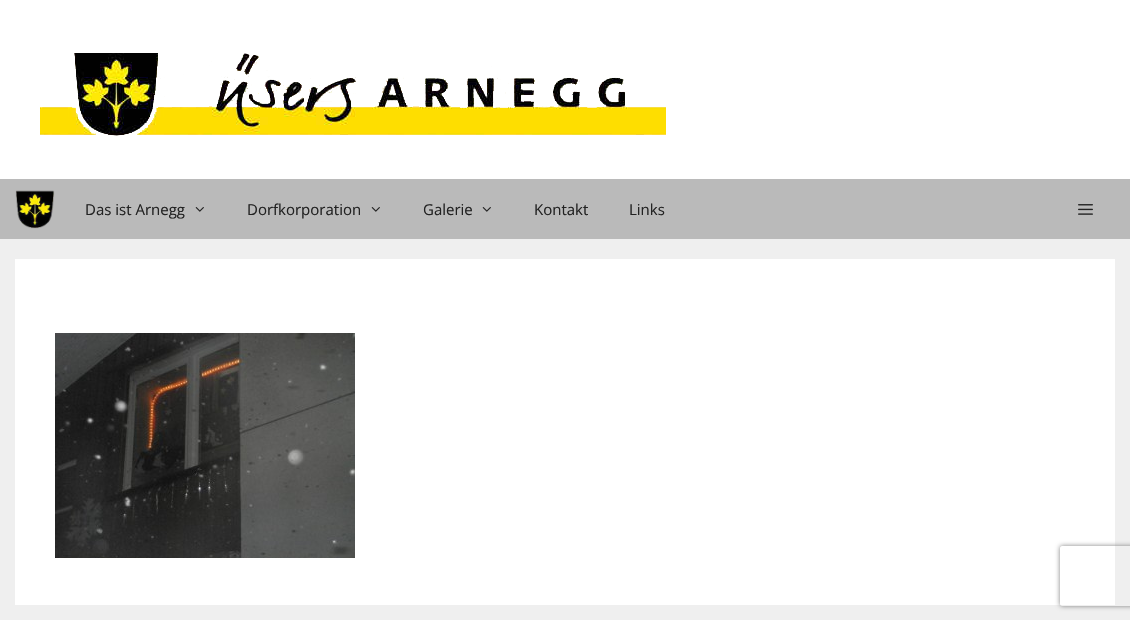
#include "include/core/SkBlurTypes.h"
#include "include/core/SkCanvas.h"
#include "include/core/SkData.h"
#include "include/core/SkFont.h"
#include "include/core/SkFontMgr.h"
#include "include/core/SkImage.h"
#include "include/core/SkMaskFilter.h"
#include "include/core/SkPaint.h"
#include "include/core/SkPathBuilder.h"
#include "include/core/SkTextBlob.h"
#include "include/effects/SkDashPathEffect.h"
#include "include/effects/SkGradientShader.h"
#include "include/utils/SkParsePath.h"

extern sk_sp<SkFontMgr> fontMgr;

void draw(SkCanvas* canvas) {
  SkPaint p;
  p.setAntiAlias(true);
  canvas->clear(SkColorSetRGB(239, 239, 239));
  p.setColor(SK_ColorWHITE);
  canvas->drawRect(SkRect::MakeLTRB(0, 0, 1130, 179), p);
  canvas->drawImageRect(SkImages::DeferredFromEncodedData(SkData::MakeFromFileName("images/1.png")), SkRect::MakeLTRB(40, 53, 666, 136), SkSamplingOptions());
  p.setColor(SkColorSetRGB(186, 186, 186));
  canvas->drawRect(SkRect::MakeLTRB(0, 179, 1130, 239), p);
  canvas->drawImageRect(SkImages::DeferredFromEncodedData(SkData::MakeFromFileName("images/2.png")), SkRect::MakeLTRB(15, 190, 55, 229), SkSamplingOptions());
  canvas->drawImageRect(SkImages::DeferredFromEncodedData(SkData::MakeFromFileName("images/3.png")), SkRect::MakeLTRB(195, 207, 204, 212), SkSamplingOptions());
  canvas->drawImageRect(SkImages::DeferredFromEncodedData(SkData::MakeFromFileName("images/3.png")), SkRect::MakeLTRB(371, 207, 380, 212), SkSamplingOptions());
  canvas->drawImageRect(SkImages::DeferredFromEncodedData(SkData::MakeFromFileName("images/3.png")), SkRect::MakeLTRB(482, 207, 491, 212), SkSamplingOptions());
  canvas->drawImageRect(SkImages::DeferredFromEncodedData(SkData::MakeFromFileName("images/4.png")), SkRect::MakeLTRB(1078, 204, 1093, 215), SkSamplingOptions());
  p.setColor(SK_ColorWHITE);
  canvas->drawRect(SkRect::MakeLTRB(15, 259, 1115, 605), p);
  canvas->drawImageRect(SkImages::DeferredFromEncodedData(SkData::MakeFromFileName("images/5.png")), SkRect::MakeLTRB(55, 333, 355, 558), SkSamplingOptions());
  canvas->save();
  canvas->clipPath(SkPathBuilder(SkPathFillType::kEvenOdd).moveTo(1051, 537).lineTo(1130, 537).lineTo(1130, 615).lineTo(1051, 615).close().moveTo(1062, 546).lineTo(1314, 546).cubicTo(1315, 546, 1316, 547, 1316, 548).lineTo(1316, 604).cubicTo(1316, 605, 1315, 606, 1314, 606).lineTo(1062, 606).cubicTo(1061, 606, 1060, 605, 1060, 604).lineTo(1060, 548).cubicTo(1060, 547, 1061, 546, 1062, 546).close().detach(), true);
  p.setColor(SkColorSetRGB(128, 128, 128));
  p.setMaskFilter(SkMaskFilter::MakeBlur(kNormal_SkBlurStyle, 2.5f));
  canvas->drawRoundRect(SkRect::MakeLTRB(1060, 546, 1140, 606), 2, 2, p);
  p.setMaskFilter(nullptr);
  canvas->restore();
  SkFont font1(fontMgr->matchFamilyStyle("Open Sans", SkFontStyle::Normal()), 15);
  font1.setSubpixel(true);
  p.setColor(SkColorSetRGB(34, 34, 34));
  canvas->drawString("Das ist Arnegg", 85, 215, font1, p);
  canvas->drawString("Dorfkorporation", 247, 215, font1, p);
  canvas->drawString("Galerie", 423, 215, font1, p);
  canvas->drawString("Kontakt", 534, 215, font1, p);
  canvas->drawString("Links", 629, 215, font1, p);
}
